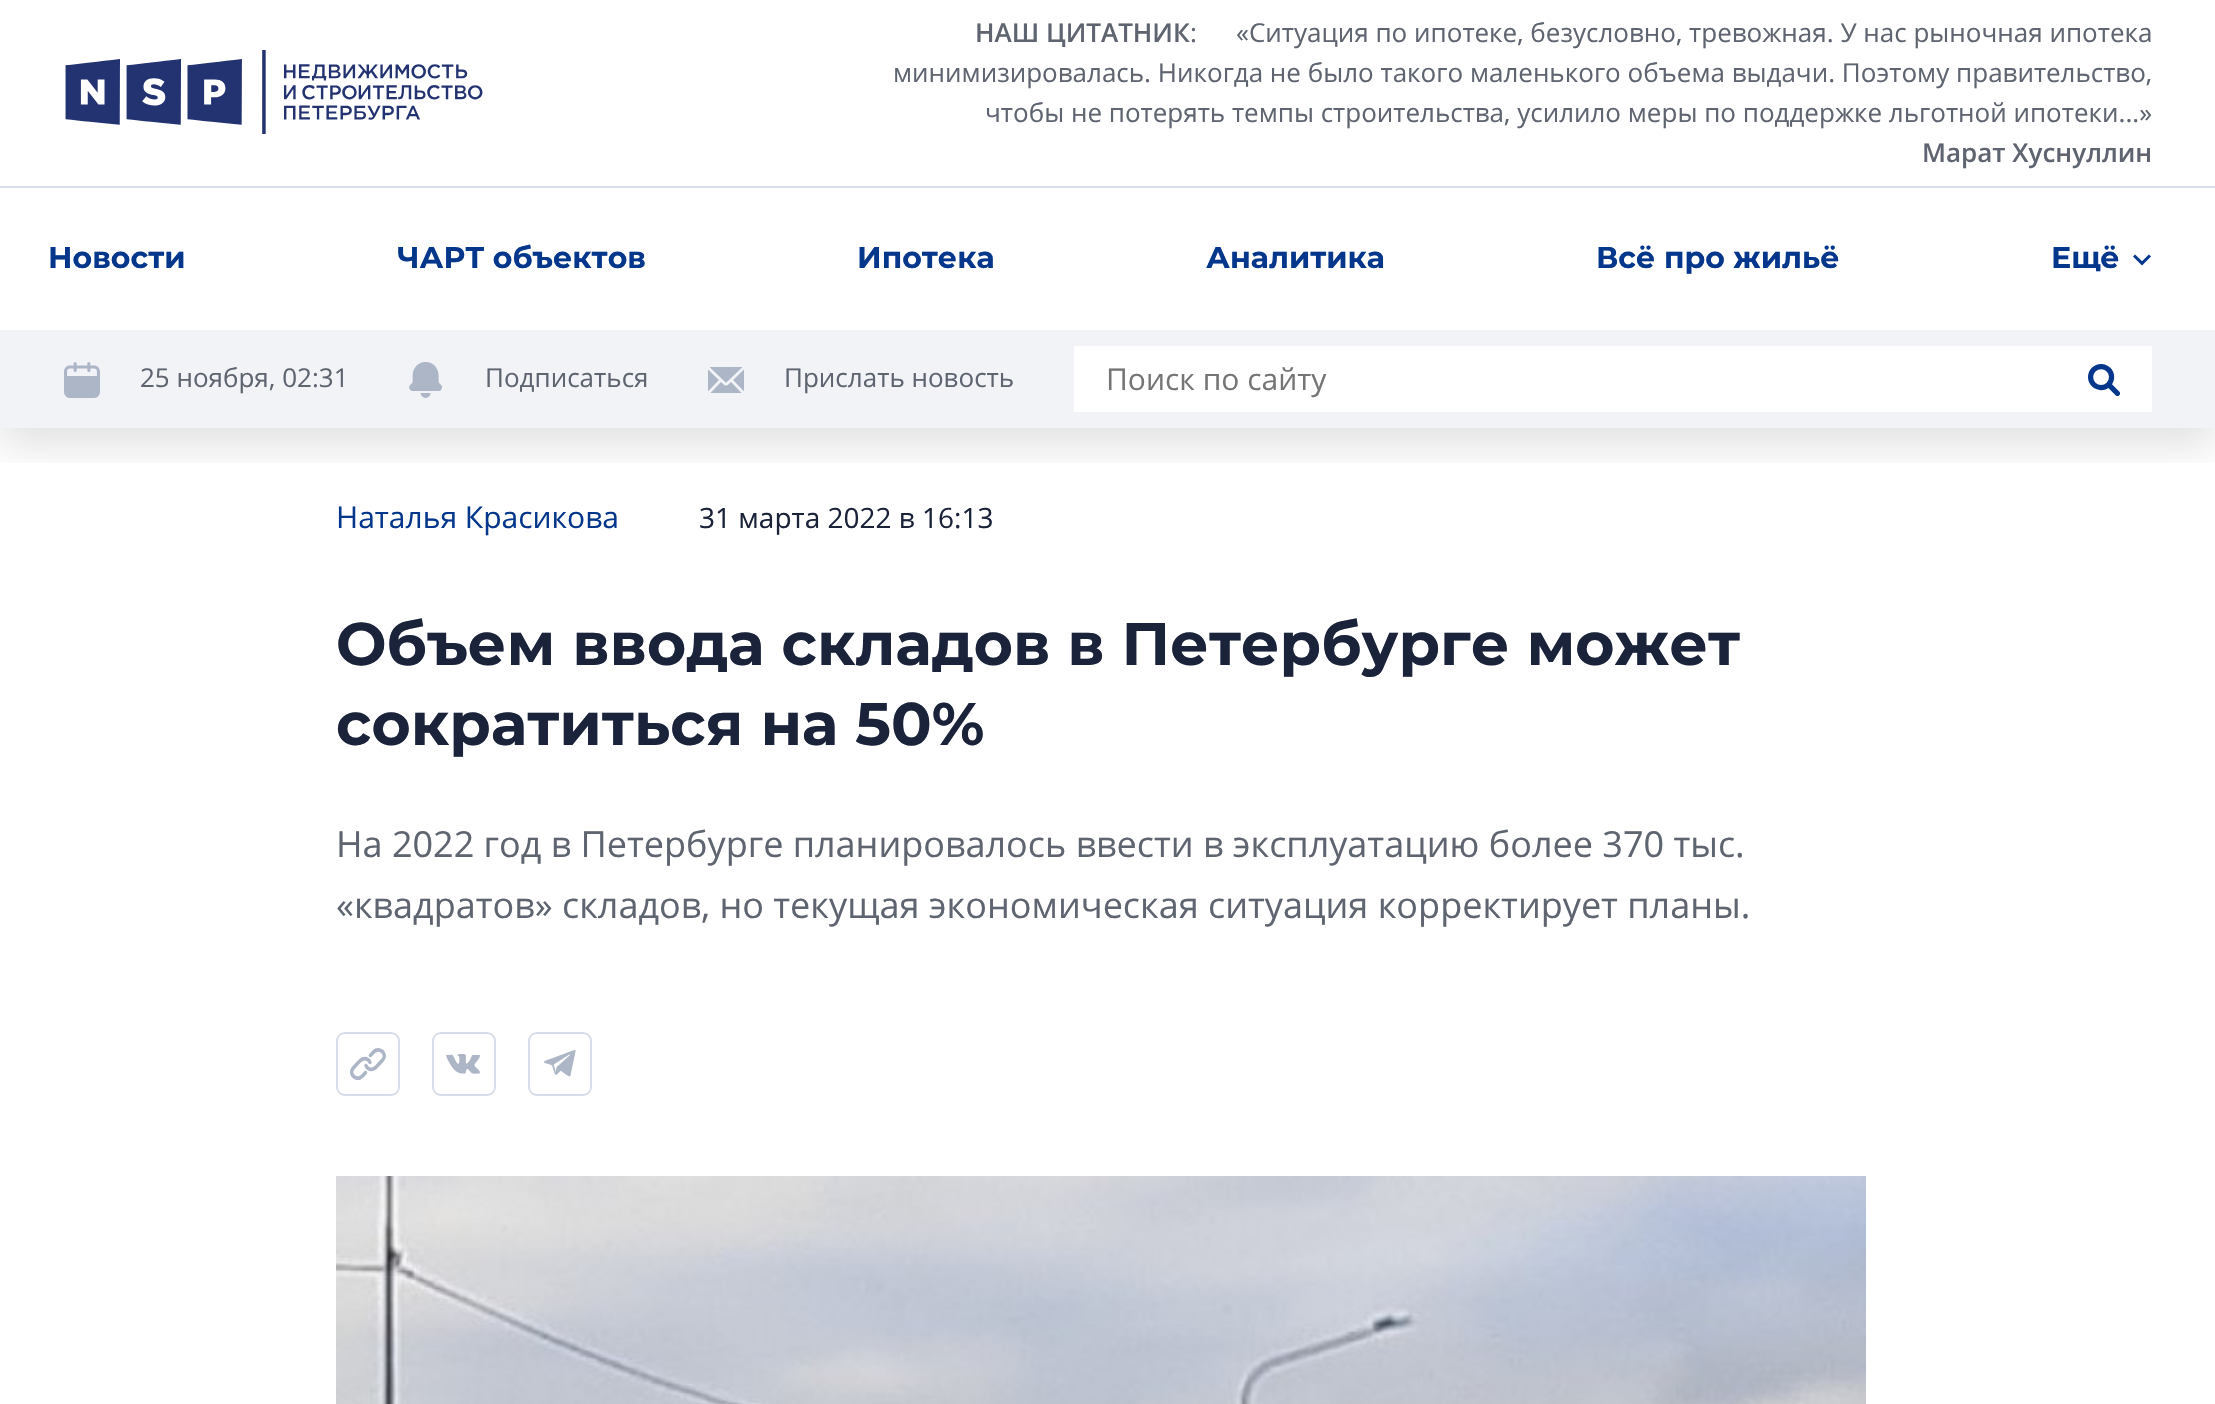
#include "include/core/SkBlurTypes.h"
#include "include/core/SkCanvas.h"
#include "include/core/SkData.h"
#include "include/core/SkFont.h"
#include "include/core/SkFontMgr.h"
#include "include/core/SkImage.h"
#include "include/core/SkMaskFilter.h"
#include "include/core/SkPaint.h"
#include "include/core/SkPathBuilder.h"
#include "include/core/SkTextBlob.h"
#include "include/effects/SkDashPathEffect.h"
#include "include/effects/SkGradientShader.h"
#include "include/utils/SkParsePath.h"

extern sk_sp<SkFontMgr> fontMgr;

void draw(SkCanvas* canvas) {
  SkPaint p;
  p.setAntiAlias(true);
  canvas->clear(SK_ColorWHITE);
  canvas->save();
  canvas->clipRect(SkRect::MakeLTRB(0, 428, 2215, 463));
  p.setColor(SkColorSetARGB(31, 0, 0, 0));
  p.setMaskFilter(SkMaskFilter::MakeBlur(kNormal_SkBlurStyle, 20));
  canvas->drawRect(SkRect::MakeLTRB(0, 16, 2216, 444), p);
  p.setMaskFilter(nullptr);
  canvas->restore();
  p.setColor(SkColorSetRGB(215, 221, 234));
  canvas->drawRect(SkRect::MakeLTRB(0, 186, 2215, 188), p);
  canvas->drawImageRect(SkImages::DeferredFromEncodedData(SkData::MakeFromFileName("images/1.png")), SkRect::MakeLTRB(65, 50, 483, 134), SkSamplingOptions());
  canvas->drawImageRect(SkImages::DeferredFromEncodedData(SkData::MakeFromFileName("images/2.png")), SkRect::MakeLTRB(2133, 254, 2151, 266), SkSamplingOptions());
  p.setColor(SkColorSetRGB(241, 243, 247));
  canvas->drawRect(SkRect::MakeLTRB(0, 330, 2215, 428), p);
  canvas->drawImageRect(SkImages::DeferredFromEncodedData(SkData::MakeFromFileName("images/3.png")), SkRect::MakeLTRB(64, 362, 100, 398), SkSamplingOptions());
  canvas->drawImageRect(SkImages::DeferredFromEncodedData(SkData::MakeFromFileName("images/4.png")), SkRect::MakeLTRB(409, 362, 442, 398), SkSamplingOptions());
  canvas->drawImageRect(SkImages::DeferredFromEncodedData(SkData::MakeFromFileName("images/5.png")), SkRect::MakeLTRB(708, 367, 744, 393), SkSamplingOptions());
  p.setColor(SK_ColorWHITE);
  canvas->drawRect(SkRect::MakeLTRB(1074, 346, 2152, 412), p);
  canvas->drawImageRect(SkImages::DeferredFromEncodedData(SkData::MakeFromFileName("images/6.png")), SkRect::MakeLTRB(2088, 364, 2120, 396), SkSamplingOptions());
  canvas->drawImageRect(SkImages::DeferredFromEncodedData(SkData::MakeFromFileName("images/7.png")), SkRect::MakeLTRB(336, 1032, 400, 1096), SkSamplingOptions());
  canvas->drawImageRect(SkImages::DeferredFromEncodedData(SkData::MakeFromFileName("images/8.png")), SkRect::MakeLTRB(432, 1032, 496, 1096), SkSamplingOptions());
  canvas->drawImageRect(SkImages::DeferredFromEncodedData(SkData::MakeFromFileName("images/9.png")), SkRect::MakeLTRB(528, 1032, 592, 1096), SkSamplingOptions());
  canvas->drawImageRect(SkImages::DeferredFromEncodedData(SkData::MakeFromFileName("images/10.png")), SkRect::MakeLTRB(336, 1176, 1866, 1404), SkSamplingOptions());
  SkFont font1(fontMgr->matchFamilyStyle("Open Sans", SkFontStyle(600, SkFontStyle::kNormal_Width, SkFontStyle::kUpright_Slant)), 26);
  font1.setSubpixel(true);
  p.setColor(SkColorSetRGB(94, 100, 112));
  canvas->drawString("НАШ ЦИТАТНИК", 975, 42, font1, p);
  SkFont font2(fontMgr->matchFamilyStyle("Open Sans", SkFontStyle::Normal()), 26);
  font2.setSubpixel(true);
  canvas->drawString(":", 1190, 42, font2, p);
  canvas->drawString("«Ситуация по ипотеке, безусловно, тревожная. У нас рыночная ипотека", 1236, 42, font2, p);
  canvas->drawString("минимизировалась. Никогда не было такого маленького объема выдачи. Поэтому правительство,", 893, 82, font2, p);
  canvas->drawString("чтобы не потерять темпы строительства, усилило меры по поддержке льготной ипотеки...»", 985, 122, font2, p);
  canvas->drawString("Марат Хуснуллин", 1922, 162, font1, p);
  SkFont font3(fontMgr->matchFamilyStyle("Montserrat", SkFontStyle::Bold()), 30);
  font3.setSubpixel(true);
  p.setColor(SkColorSetRGB(4, 55, 139));
  canvas->drawString("Новости", 48, 268, font3, p);
  canvas->drawString("ЧАРТ объектов", 397, 268, font3, p);
  canvas->drawString("Ипотека", 857, 268, font3, p);
  canvas->drawString("Аналитика", 1206, 268, font3, p);
  canvas->drawString("Всё про жильё", 1596, 268, font3, p);
  canvas->drawString("Ещё", 2051, 268, font3, p);
  SkFont font4(fontMgr->matchFamilyStyle("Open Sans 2", SkFontStyle::Normal()), 26);
  font4.setSubpixel(true);
  p.setColor(SkColorSetRGB(94, 100, 112));
  canvas->drawString("25 ноября, 02:31", 140, 387, font4, p);
  canvas->drawString("Подписаться", 485, 387, font4, p);
  canvas->drawString("Прислать новость", 784, 387, font4, p);
  SkFont font5(fontMgr->matchFamilyStyle("Open Sans", SkFontStyle::Normal()), 30);
  font5.setSubpixel(true);
  p.setColor(SkColorSetRGB(117, 117, 117));
  canvas->drawString("Поиск по сайту", 1106, 390, font5, p);
  p.setColor(SkColorSetRGB(4, 55, 139));
  canvas->drawString("Наталья Красикова", 336, 528, font5, p);
  SkFont font6(fontMgr->matchFamilyStyle("Open Sans", SkFontStyle::Normal()), 28);
  font6.setSubpixel(true);
  p.setColor(SkColorSetRGB(26, 35, 58));
  canvas->drawString("31 марта 2022 в 16:13", 699, 528, font6, p);
  SkFont font7(fontMgr->matchFamilyStyle("Montserrat", SkFontStyle::Bold()), 60);
  font7.setSubpixel(true);
  canvas->drawString("Объем ввода складов в Петербурге может", 336, 665, font7, p);
  canvas->drawString("сократиться на 50%", 336, 745, font7, p);
  SkFont font8(fontMgr->matchFamilyStyle("Open Sans", SkFontStyle::Normal()), 36);
  font8.setSubpixel(true);
  p.setColor(SkColorSetRGB(94, 100, 112));
  canvas->drawString("На 2022 год в Петербурге планировалось ввести в эксплуатацию более 370 тыс.", 336, 857, font8, p);
  canvas->drawString("«квадратов» складов, но текущая экономическая ситуация корректирует планы.", 336, 918, font8, p);
}
